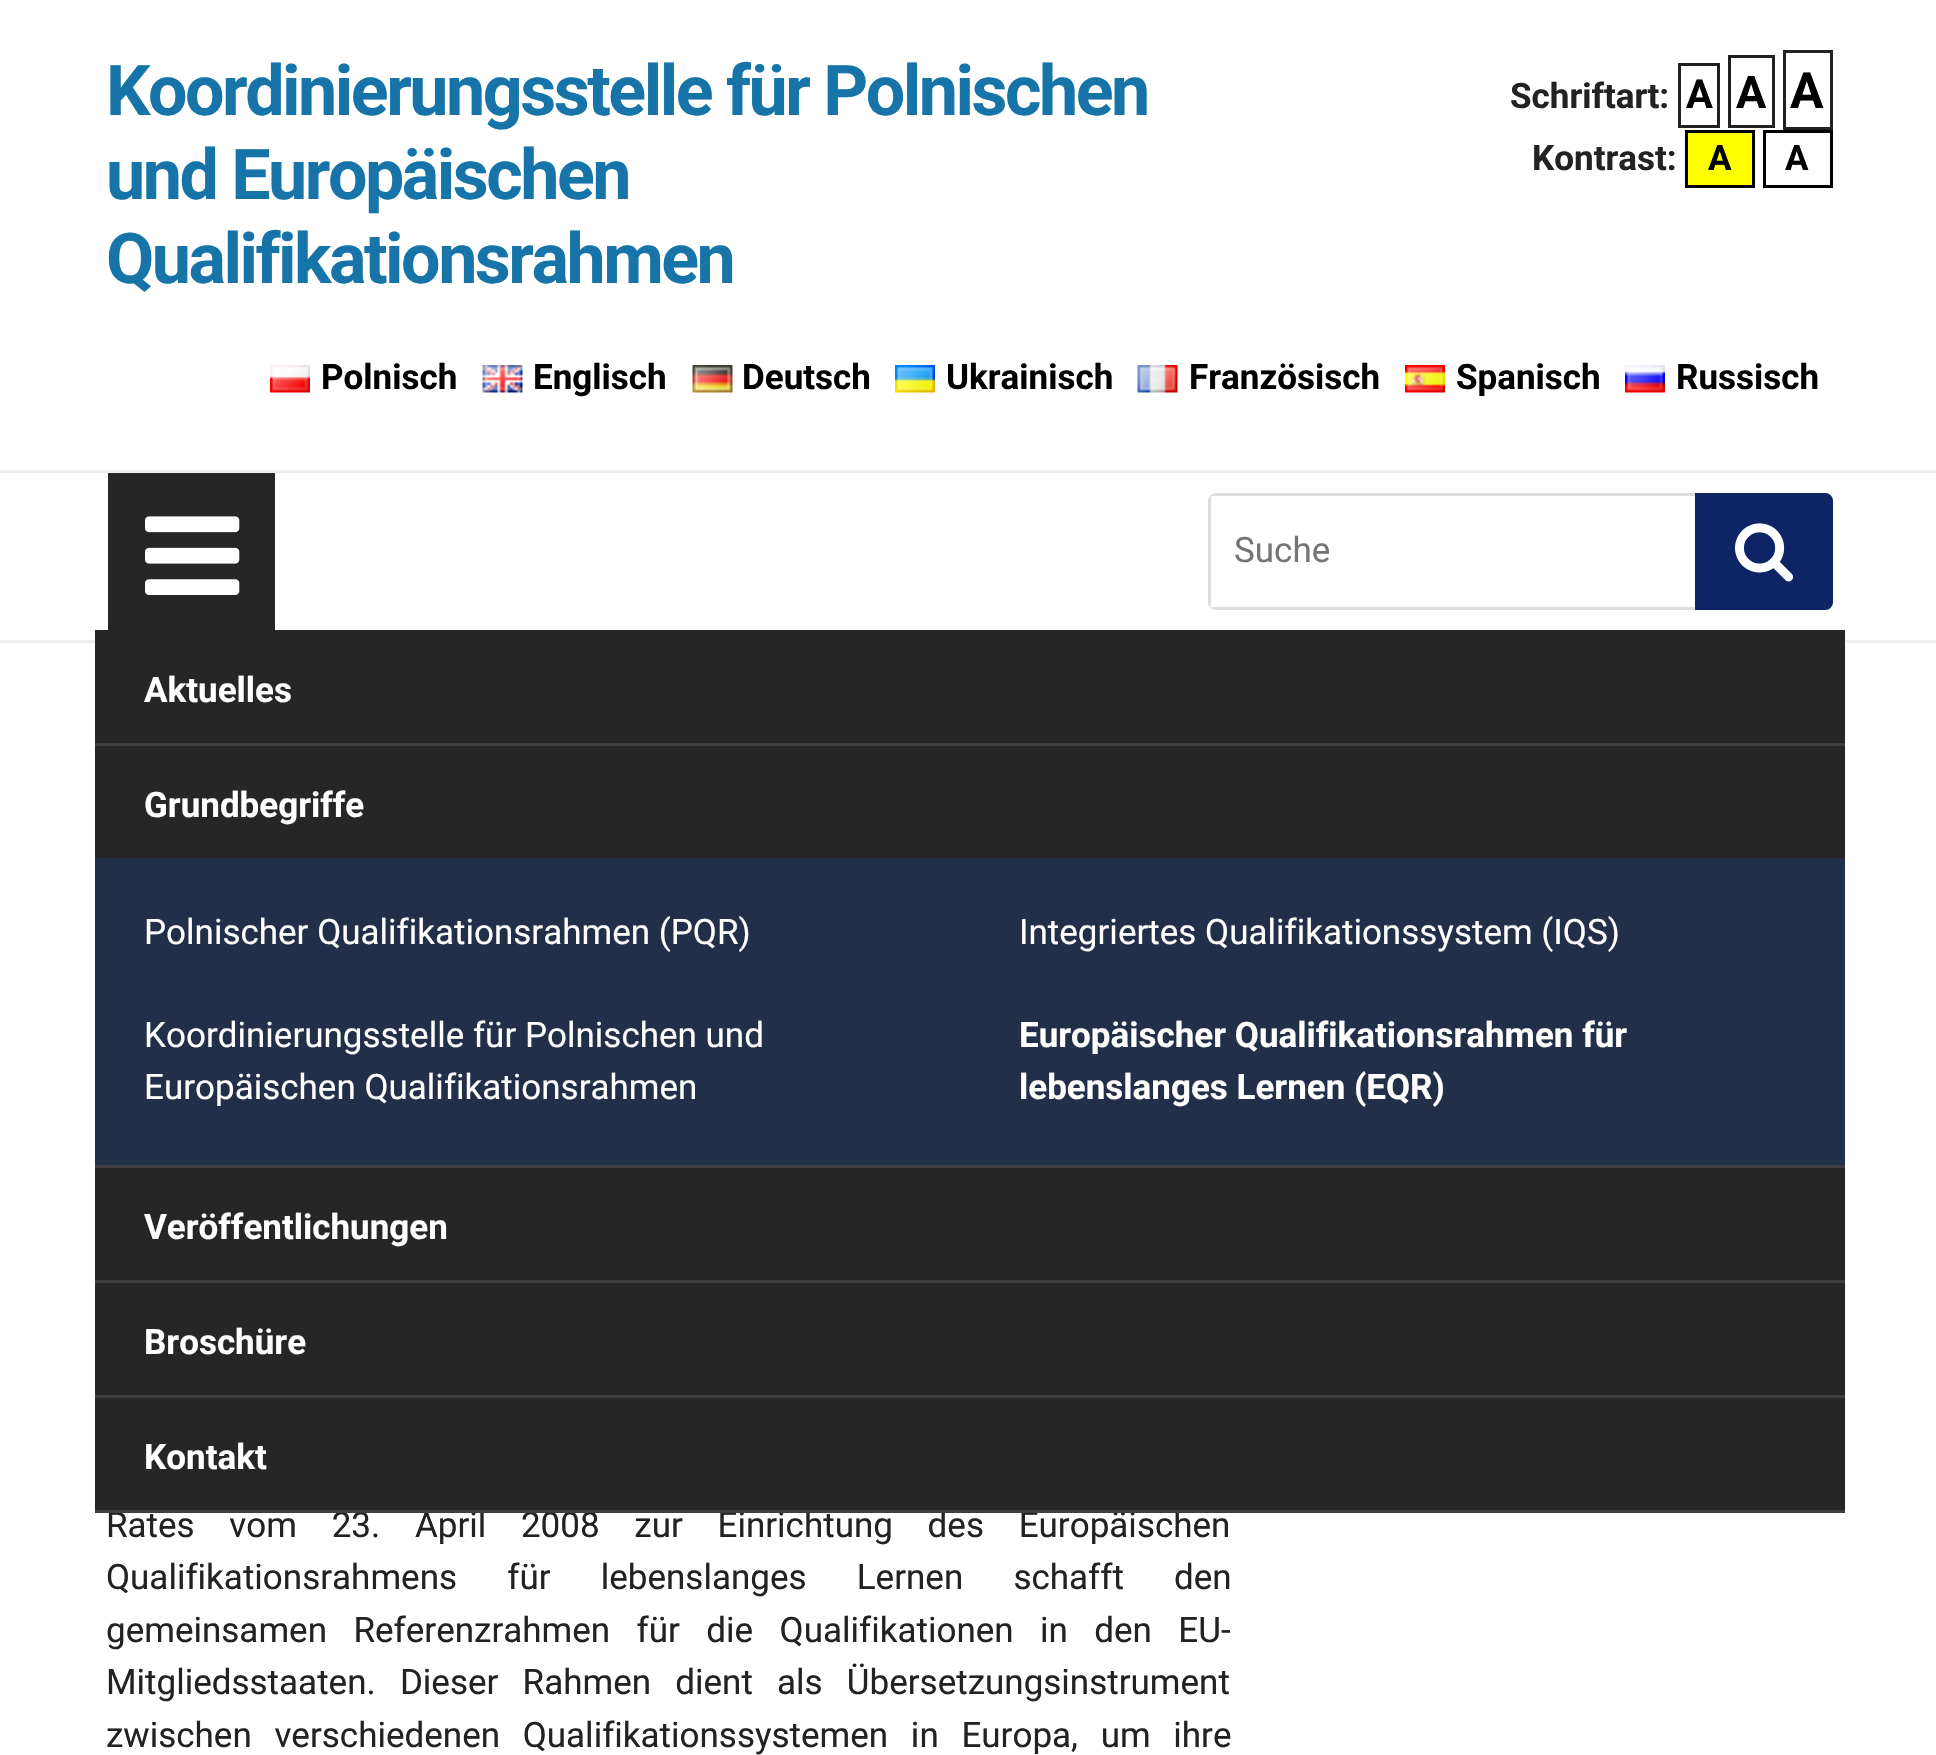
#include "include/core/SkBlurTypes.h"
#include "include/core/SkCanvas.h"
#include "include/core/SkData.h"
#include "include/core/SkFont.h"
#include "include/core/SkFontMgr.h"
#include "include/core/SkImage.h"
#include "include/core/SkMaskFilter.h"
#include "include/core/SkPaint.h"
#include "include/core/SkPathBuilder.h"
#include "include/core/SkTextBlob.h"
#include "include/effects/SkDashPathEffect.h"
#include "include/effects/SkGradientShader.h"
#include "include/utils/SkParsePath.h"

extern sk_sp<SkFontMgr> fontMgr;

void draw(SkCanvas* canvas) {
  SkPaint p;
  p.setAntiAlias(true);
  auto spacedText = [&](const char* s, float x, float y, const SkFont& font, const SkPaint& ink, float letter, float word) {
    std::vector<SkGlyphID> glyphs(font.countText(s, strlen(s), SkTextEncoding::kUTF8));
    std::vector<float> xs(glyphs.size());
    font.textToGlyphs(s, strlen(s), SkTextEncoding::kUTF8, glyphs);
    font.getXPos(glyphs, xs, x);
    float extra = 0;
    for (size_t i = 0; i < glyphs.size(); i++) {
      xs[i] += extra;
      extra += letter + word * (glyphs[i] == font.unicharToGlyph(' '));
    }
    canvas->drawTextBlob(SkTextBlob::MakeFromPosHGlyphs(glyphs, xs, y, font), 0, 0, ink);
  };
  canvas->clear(SK_ColorWHITE);
  p.setStyle(SkPaint::kStroke_Style);
  p.setStrokeWidth(3);
  p.setColor(SkColorSetRGB(34, 34, 34));
  canvas->drawRect(SkRect::MakeLTRB(1679.5f, 64.5f, 1718.5f, 126.5f), p);
  canvas->drawRect(SkRect::MakeLTRB(1729.5f, 56.5f, 1773.5f, 126.5f), p);
  canvas->drawRect(SkRect::MakeLTRB(1784.5f, 51.5f, 1831.5f, 128.5f), p);
  p.setStyle(SkPaint::kFill_Style);
  p.setColor(SkColorSetRGB(255, 255, 0));
  canvas->drawRect(SkRect::MakeLTRB(1686.5f, 131.5f, 1753.5f, 186.5f), p);
  p.setStyle(SkPaint::kStroke_Style);
  p.setColor(SK_ColorBLACK);
  canvas->drawRect(SkRect::MakeLTRB(1686.5f, 131.5f, 1753.5f, 186.5f), p);
  canvas->drawRect(SkRect::MakeLTRB(1764.5f, 131.5f, 1831.5f, 186.5f), p);
  canvas->drawImageRect(SkImages::DeferredFromEncodedData(SkData::MakeFromFileName("images/1.png")), SkRect::MakeLTRB(270, 365, 310, 393), SkSamplingOptions());
  canvas->drawImageRect(SkImages::DeferredFromEncodedData(SkData::MakeFromFileName("images/2.png")), SkRect::MakeLTRB(482, 365, 523, 393), SkSamplingOptions());
  canvas->drawImageRect(SkImages::DeferredFromEncodedData(SkData::MakeFromFileName("images/3.png")), SkRect::MakeLTRB(692, 365, 733, 393), SkSamplingOptions());
  canvas->drawImageRect(SkImages::DeferredFromEncodedData(SkData::MakeFromFileName("images/4.png")), SkRect::MakeLTRB(895, 365, 935, 393), SkSamplingOptions());
  canvas->drawImageRect(SkImages::DeferredFromEncodedData(SkData::MakeFromFileName("images/5.png")), SkRect::MakeLTRB(1137, 365, 1178, 393), SkSamplingOptions());
  canvas->drawImageRect(SkImages::DeferredFromEncodedData(SkData::MakeFromFileName("images/6.png")), SkRect::MakeLTRB(1405, 365, 1445, 393), SkSamplingOptions());
  canvas->drawImageRect(SkImages::DeferredFromEncodedData(SkData::MakeFromFileName("images/7.png")), SkRect::MakeLTRB(1625, 365, 1665, 393), SkSamplingOptions());
  p.setStyle(SkPaint::kFill_Style);
  p.setColor(SkColorSetRGB(238, 238, 238));
  canvas->drawRect(SkRect::MakeLTRB(0, 470, 1936, 473), p);
  canvas->drawRect(SkRect::MakeLTRB(0, 640, 1936, 643), p);
  p.setColor(SkColorSetRGB(38, 38, 38));
  canvas->drawRect(SkRect::MakeLTRB(108, 473, 275, 630), p);
  canvas->drawImageRect(SkImages::DeferredFromEncodedData(SkData::MakeFromFileName("images/8.png")), SkRect::MakeLTRB(145, 516, 240, 595), SkSamplingOptions());
  p.setColor(SkColorSetRGB(221, 221, 221));
  canvas->drawPath(SkPathBuilder(SkPathFillType::kEvenOdd).moveTo(1216, 493).cubicTo(1212, 493, 1208, 497, 1208, 501).lineTo(1208, 602).cubicTo(1208, 606, 1212, 610, 1216, 610).lineTo(1823, 610).lineTo(1823, 493).close().moveTo(1211, 496).lineTo(1211, 607).lineTo(1820, 607).lineTo(1820, 496).close().detach(), p);
  p.setColor(SkColorSetRGB(14, 37, 101));
  canvas->drawPath(SkPathBuilder().moveTo(1695, 493).lineTo(1825, 493).cubicTo(1829.5f, 493, 1833, 496.5f, 1833, 501).lineTo(1833, 602).cubicTo(1833, 606.5f, 1829.5f, 610, 1825, 610).lineTo(1695, 610).close().detach(), p);
  canvas->drawImageRect(SkImages::DeferredFromEncodedData(SkData::MakeFromFileName("images/9.png")), SkRect::MakeLTRB(1735, 523, 1793, 582), SkSamplingOptions());
  p.setColor(SkColorSetRGB(38, 38, 38));
  canvas->drawRect(SkRect::MakeLTRB(95, 630, 1845, 1510), p);
  p.setColor(SkColorSetRGB(62, 62, 62));
  canvas->drawRect(SkRect::MakeLTRB(95, 743, 1845, 746), p);
  canvas->drawRect(SkRect::MakeLTRB(95, 1165, 1845, 1168), p);
  p.setColor(SkColorSetRGB(33, 47, 72));
  canvas->drawRect(SkRect::MakeLTRB(95, 858, 1845, 1165), p);
  p.setColor(SkColorSetRGB(62, 62, 62));
  canvas->drawRect(SkRect::MakeLTRB(95, 1280, 1845, 1283), p);
  canvas->drawRect(SkRect::MakeLTRB(95, 1395, 1845, 1398), p);
  SkFont font1(fontMgr->matchFamilyStyle("Roboto", SkFontStyle::Bold()), 70);
  font1.setSubpixel(true);
  p.setColor(SkColorSetRGB(22, 116, 168));
  spacedText("Koordinierungsstelle für Polnischen", 106, 115, font1, p, -2.5f, 0);
  spacedText("und Europäischen", 106, 199, font1, p, -2.5f, 0);
  spacedText("Qualifikationsrahmen", 106, 283, font1, p, -2.5f, 0);
  SkFont font2(fontMgr->matchFamilyStyle("Roboto", SkFontStyle::Bold()), 35);
  font2.setSubpixel(true);
  p.setColor(SkColorSetRGB(34, 34, 34));
  canvas->drawString("Schriftart:", 1510, 108, font2, p);
  SkFont font3(fontMgr->matchFamilyStyle("Roboto", SkFontStyle::Bold()), 40);
  font3.setSubpixel(true);
  p.setColor(SK_ColorBLACK);
  canvas->drawString("A", 1686, 108, font3, p);
  SkFont font4(fontMgr->matchFamilyStyle("Roboto", SkFontStyle::Bold()), 45);
  font4.setSubpixel(true);
  canvas->drawString("A", 1736, 108, font4, p);
  SkFont font5(fontMgr->matchFamilyStyle("Roboto", SkFontStyle::Bold()), 50);
  font5.setSubpixel(true);
  canvas->drawString("A", 1790, 108, font5, p);
  p.setColor(SkColorSetRGB(34, 34, 34));
  canvas->drawString("Kontrast:", 1532, 170, font2, p);
  p.setColor(SK_ColorBLACK);
  canvas->drawString("A", 1708, 170, font2, p);
  canvas->drawString("A", 1785, 170, font2, p);
  canvas->drawString("Polnisch", 321, 389, font2, p);
  canvas->drawString("Englisch", 533, 389, font2, p);
  canvas->drawString("Deutsch", 742, 389, font2, p);
  canvas->drawString("Ukrainisch", 946, 389, font2, p);
  canvas->drawString("Französisch", 1189, 389, font2, p);
  canvas->drawString("Spanisch", 1456, 389, font2, p);
  canvas->drawString("Russisch", 1676, 389, font2, p);
  SkFont font6(fontMgr->matchFamilyStyle("Roboto", SkFontStyle::Normal()), 35);
  font6.setSubpixel(true);
  p.setColor(SkColorSetRGB(117, 117, 117));
  canvas->drawString("Suche", 1234, 562, font6, p);
  p.setColor(SK_ColorWHITE);
  canvas->drawString("Aktuelles", 144, 702, font2, p);
  canvas->drawString("Grundbegriffe", 144, 817, font2, p);
  canvas->drawString("Polnischer Qualifikationsrahmen (PQR)", 144, 944, font6, p);
  canvas->drawString("Integriertes Qualifikationssystem (IQS)", 1019, 944, font6, p);
  canvas->drawString("Koordinierungsstelle für Polnischen und", 144, 1047, font6, p);
  canvas->drawString("Europäischen Qualifikationsrahmen", 144, 1099, font6, p);
  canvas->drawString("Europäischer Qualifikationsrahmen für", 1019, 1047, font2, p);
  canvas->drawString("lebenslanges Lernen (EQR)", 1019, 1099, font2, p);
  canvas->drawString("Veröffentlichungen", 144, 1239, font2, p);
  canvas->drawString("Broschüre", 144, 1354, font2, p);
  canvas->drawString("Kontakt", 144, 1469, font2, p);
  p.setColor(SkColorSetRGB(34, 34, 34));
  spacedText("Rates vom 23. April 2008 zur Einrichtung des Europäischen", 106, 1537, font6, p, 0, 26);
  p.setColor(SkColorSetRGB(62, 62, 62));
  canvas->drawRect(SkRect::MakeLTRB(95, 1510, 1845, 1513), p);
  p.setColor(SkColorSetRGB(34, 34, 34));
  spacedText("Qualifikationsrahmens für lebenslanges Lernen schafft den", 106, 1589, font6, p, 0, 41.5f);
  spacedText("gemeinsamen Referenzrahmen für die Qualifikationen in den EU-", 106, 1642, font6, p, 0, 17.75f);
  spacedText("Mitgliedsstaaten. Dieser Rahmen dient als Übersetzungsinstrument", 106, 1694, font6, p, 0, 15.5f);
  spacedText("zwischen verschiedenen Qualifikationssystemen in Europa, um ihre", 106, 1747, font6, p, 0, 14);
}
